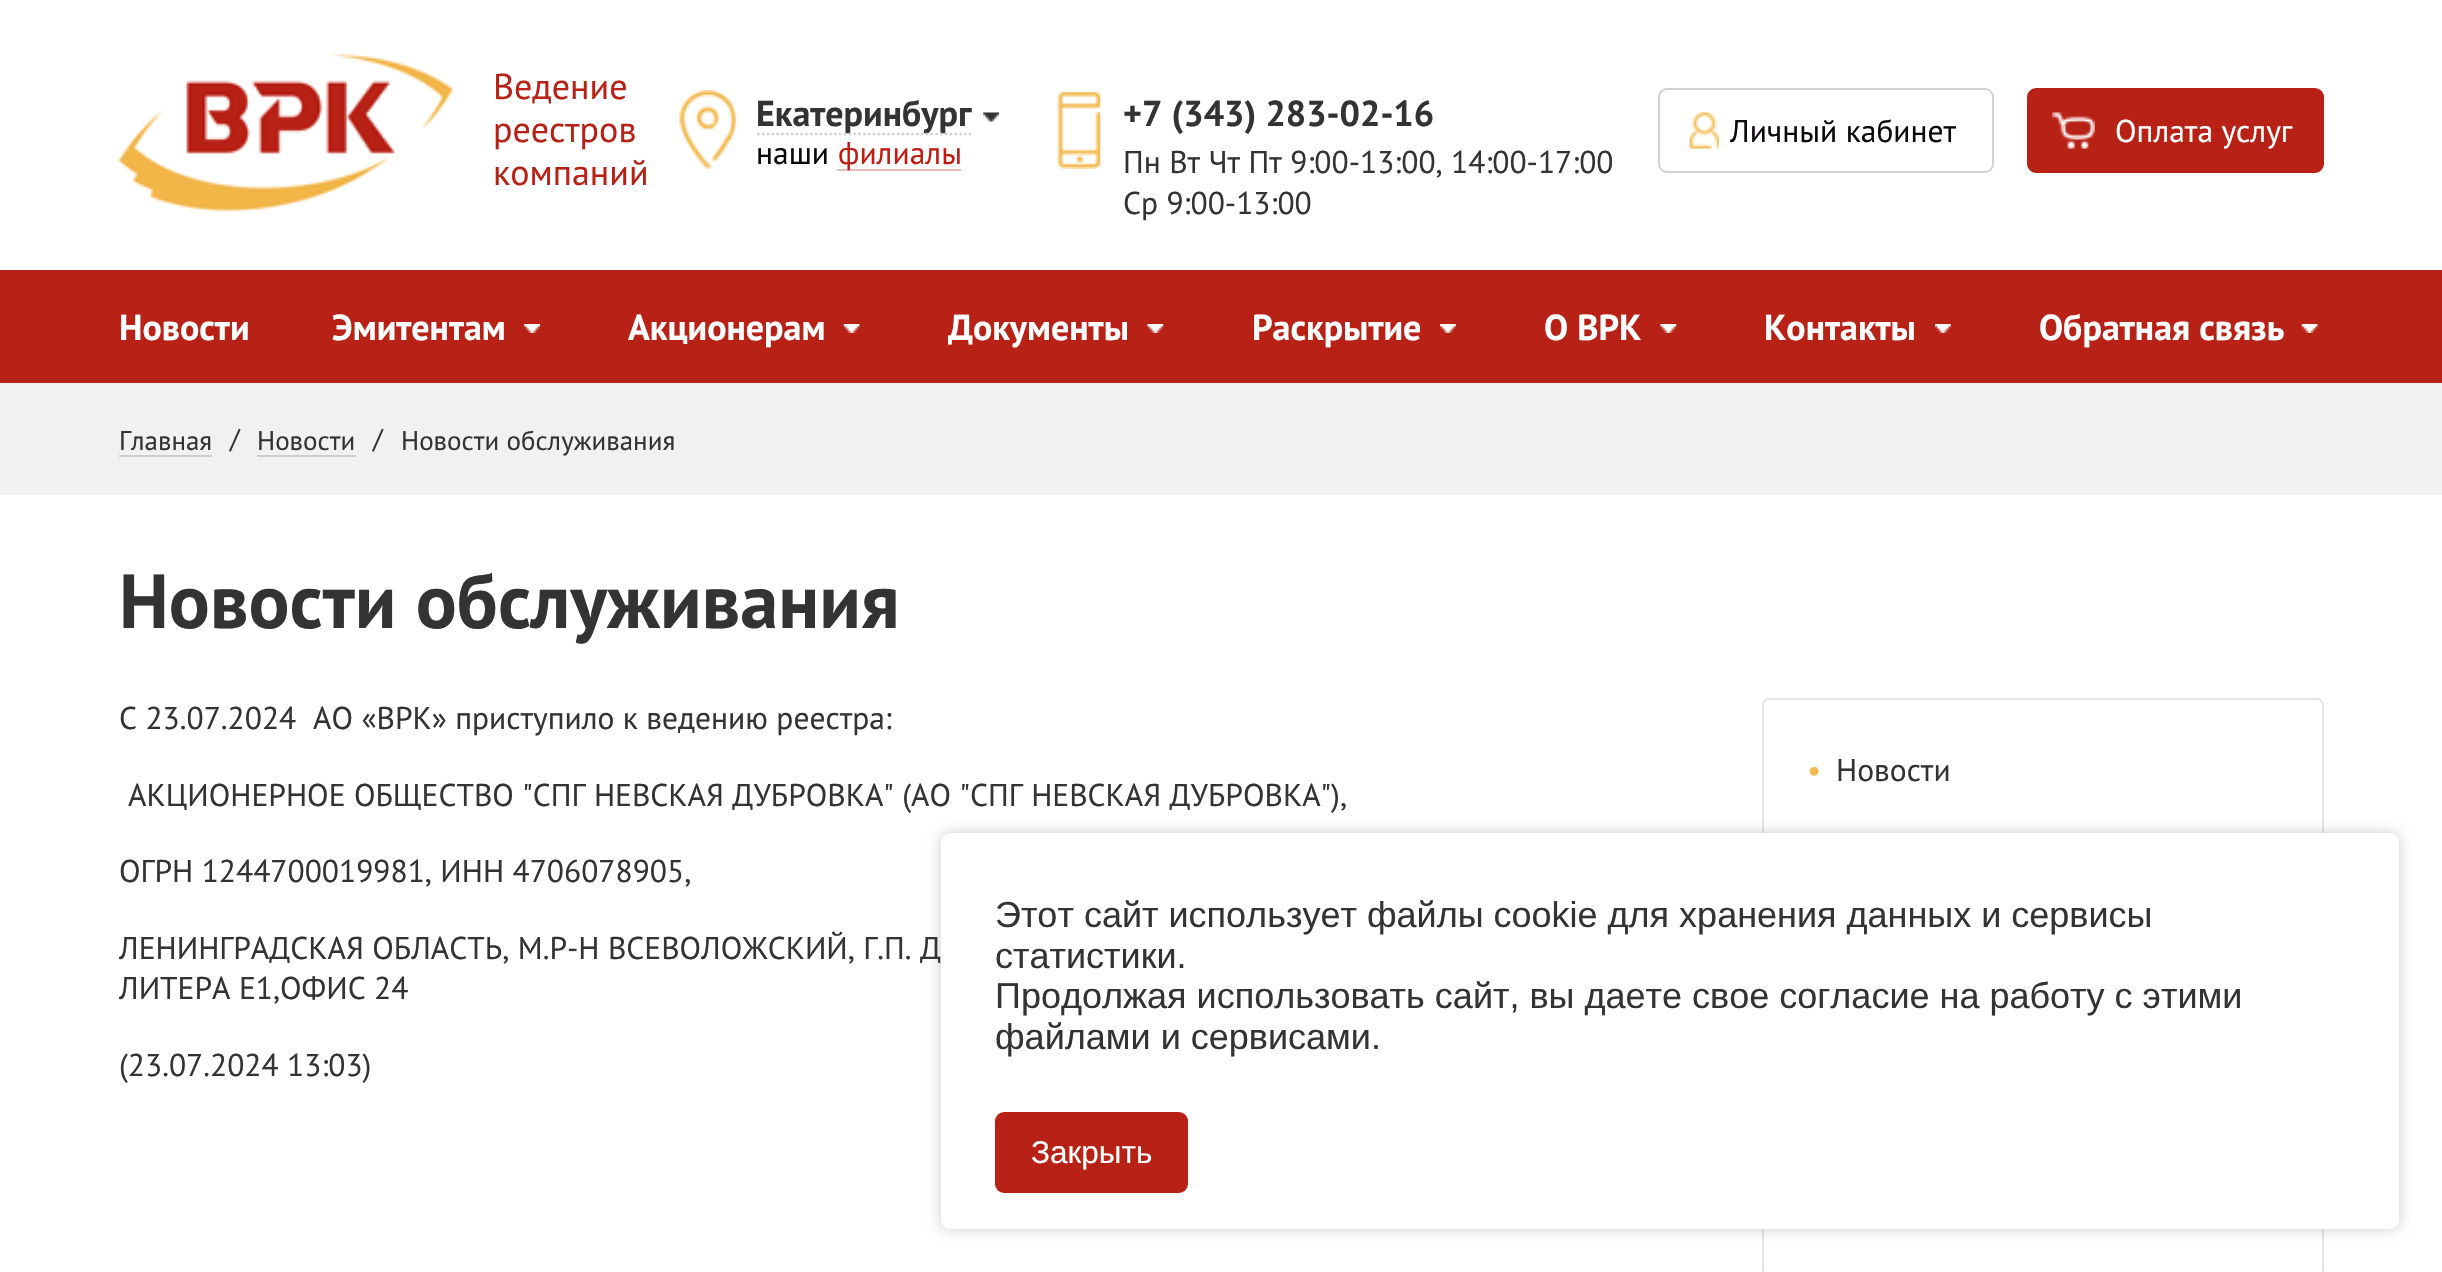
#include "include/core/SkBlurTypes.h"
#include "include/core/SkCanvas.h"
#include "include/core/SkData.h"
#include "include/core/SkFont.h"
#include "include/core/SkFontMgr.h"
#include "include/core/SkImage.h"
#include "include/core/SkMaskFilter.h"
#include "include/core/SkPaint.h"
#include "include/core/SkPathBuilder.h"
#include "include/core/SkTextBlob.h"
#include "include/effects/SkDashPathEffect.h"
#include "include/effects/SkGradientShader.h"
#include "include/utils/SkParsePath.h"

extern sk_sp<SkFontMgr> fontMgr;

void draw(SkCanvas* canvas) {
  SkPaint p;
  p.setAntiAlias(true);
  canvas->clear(SK_ColorWHITE);
  canvas->drawImageRect(SkImages::DeferredFromEncodedData(SkData::MakeFromFileName("images/1.png")), SkRect::MakeLTRB(119, 54, 453, 212), SkSamplingOptions());
  canvas->drawImageRect(SkImages::DeferredFromEncodedData(SkData::MakeFromFileName("images/2.png")), SkRect::MakeLTRB(679, 90, 737, 169), SkSamplingOptions());
  canvas->drawImageRect(SkImages::DeferredFromEncodedData(SkData::MakeFromFileName("images/3.png")), SkRect::MakeLTRB(983, 112, 999, 122), SkSamplingOptions());
  p.setColor(SkColorSetRGB(234, 188, 185));
  canvas->drawRect(SkRect::MakeLTRB(837, 169, 961, 171), p);
  canvas->drawImageRect(SkImages::DeferredFromEncodedData(SkData::MakeFromFileName("images/4.png")), SkRect::MakeLTRB(1057, 92, 1101, 169), SkSamplingOptions());
  p.setStyle(SkPaint::kStroke_Style);
  p.setStrokeWidth(2);
  p.setColor(SkColorSetRGB(210, 208, 208));
  canvas->drawRoundRect(SkRect::MakeLTRB(1659, 89, 1993, 172), 8, 8, p);
  canvas->drawImageRect(SkImages::DeferredFromEncodedData(SkData::MakeFromFileName("images/5.png")), SkRect::MakeLTRB(1689, 112, 1719, 149), SkSamplingOptions());
  p.setStyle(SkPaint::kFill_Style);
  p.setColor(SkColorSetRGB(184, 33, 22));
  canvas->drawRoundRect(SkRect::MakeLTRB(2028, 89, 2323, 172), 8, 8, p);
  p.setStyle(SkPaint::kStroke_Style);
  canvas->drawRoundRect(SkRect::MakeLTRB(2028, 89, 2323, 172), 8, 8, p);
  canvas->drawImageRect(SkImages::DeferredFromEncodedData(SkData::MakeFromFileName("images/6.png")), SkRect::MakeLTRB(2052, 112, 2095, 149), SkSamplingOptions());
  p.setStyle(SkPaint::kFill_Style);
  canvas->drawRect(SkRect::MakeLTRB(0, 270, 2442, 383), p);
  canvas->drawImageRect(SkImages::DeferredFromEncodedData(SkData::MakeFromFileName("images/7.png")), SkRect::MakeLTRB(524, 324, 540, 333), SkSamplingOptions());
  canvas->drawImageRect(SkImages::DeferredFromEncodedData(SkData::MakeFromFileName("images/8.png")), SkRect::MakeLTRB(843, 324, 860, 333), SkSamplingOptions());
  canvas->drawImageRect(SkImages::DeferredFromEncodedData(SkData::MakeFromFileName("images/9.png")), SkRect::MakeLTRB(1147, 324, 1164, 333), SkSamplingOptions());
  canvas->drawImageRect(SkImages::DeferredFromEncodedData(SkData::MakeFromFileName("images/10.png")), SkRect::MakeLTRB(1440, 324, 1456, 333), SkSamplingOptions());
  canvas->drawImageRect(SkImages::DeferredFromEncodedData(SkData::MakeFromFileName("images/9.png")), SkRect::MakeLTRB(1660, 324, 1677, 333), SkSamplingOptions());
  canvas->drawImageRect(SkImages::DeferredFromEncodedData(SkData::MakeFromFileName("images/10.png")), SkRect::MakeLTRB(1935, 324, 1951, 333), SkSamplingOptions());
  canvas->drawImageRect(SkImages::DeferredFromEncodedData(SkData::MakeFromFileName("images/8.png")), SkRect::MakeLTRB(2301, 324, 2318, 333), SkSamplingOptions());
  p.setColor(SkColorSetRGB(241, 241, 241));
  canvas->drawRect(SkRect::MakeLTRB(0, 383, 2442, 495), p);
  p.setColor(SkColorSetRGB(204, 204, 204));
  canvas->drawRect(SkRect::MakeLTRB(119, 455, 212, 457), p);
  canvas->drawRect(SkRect::MakeLTRB(257, 455, 356, 457), p);
  p.setStyle(SkPaint::kStroke_Style);
  p.setColor(SkColorSetRGB(229, 229, 229));
  canvas->drawRoundRect(SkRect::MakeLTRB(1763, 699, 2323, 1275), 6, 6, p);
  p.setStyle(SkPaint::kFill_Style);
  p.setColor(SkColorSetARGB(51, 0, 0, 0));
  p.setMaskFilter(SkMaskFilter::MakeBlur(kNormal_SkBlurStyle, 7));
  canvas->drawRoundRect(SkRect::MakeLTRB(941, 833, 2399, 1229), 9, 9, p);
  p.setMaskFilter(nullptr);
  p.setColor(SK_ColorWHITE);
  canvas->drawRoundRect(SkRect::MakeLTRB(941, 833, 2399, 1229), 9, 9, p);
  p.setColor(SkColorSetRGB(184, 33, 22));
  canvas->drawRoundRect(SkRect::MakeLTRB(995, 1112, 1188, 1193), 9, 9, p);
  SkFont font1(fontMgr->matchFamilyStyle("PT Sans", SkFontStyle::Normal()), 36);
  font1.setSubpixel(true);
  canvas->drawString("Ведение", 493, 99, font1, p);
  canvas->drawString("реестров", 493, 142, font1, p);
  canvas->drawString("компаний", 493, 185, font1, p);
  SkFont font2(fontMgr->matchFamilyStyle("PT Sans", SkFontStyle::Bold()), 36);
  font2.setSubpixel(true);
  p.setColor(SkColorSetRGB(51, 51, 51));
  canvas->drawString("Екатеринбург", 756, 126, font2, p);
  SkFont font3(fontMgr->matchFamilyStyle("PT Sans", SkFontStyle::Normal()), 22.5f);
  font3.setSubpixel(true);
  p.setColor(SkColorSetRGB(210, 208, 208));
  canvas->drawString(".............................................", 756, 135, font3, p);
  SkFont font4(fontMgr->matchFamilyStyle("PT Sans", SkFontStyle::Normal()), 31.5f);
  font4.setSubpixel(true);
  p.setColor(SkColorSetRGB(11, 9, 12));
  canvas->drawString("наши", 756, 164, font4, p);
  p.setColor(SkColorSetRGB(191, 29, 20));
  canvas->drawString("филиалы", 838, 164, font4, p);
  p.setColor(SkColorSetRGB(51, 51, 51));
  canvas->drawString("+7 (343) 283-02-16", 1123, 126, font2, p);
  canvas->drawString("Пн Вт Чт Пт 9:00-13:00, 14:00-17:00", 1123, 173, font4, p);
  canvas->drawString("Ср 9:00-13:00", 1123, 214, font4, p);
  p.setColor(SkColorSetRGB(11, 9, 12));
  canvas->drawString("Личный кабинет", 1730, 142, font4, p);
  p.setColor(SK_ColorWHITE);
  canvas->drawString("Оплата услуг", 2115, 142, font4, p);
  canvas->drawString("Новости", 119, 340, font2, p);
  canvas->drawString("Эмитентам", 332, 340, font2, p);
  canvas->drawString("Акционерам", 628, 340, font2, p);
  canvas->drawString("Документы", 948, 340, font2, p);
  canvas->drawString("Раскрытие", 1252, 340, font2, p);
  canvas->drawString("О ВРК", 1544, 340, font2, p);
  canvas->drawString("Контакты", 1764, 340, font2, p);
  canvas->drawString("Обратная связь", 2039, 340, font2, p);
  SkFont font5(fontMgr->matchFamilyStyle("PT Sans", SkFontStyle::Normal()), 27);
  font5.setSubpixel(true);
  p.setColor(SkColorSetRGB(51, 51, 51));
  canvas->drawString("Главная", 119, 450, font5, p);
  canvas->drawString("/", 230, 448, font5, p);
  canvas->drawString("Новости", 257, 450, font5, p);
  canvas->drawString("/", 373, 448, font5, p);
  canvas->drawString("Новости обслуживания", 401, 450, font5, p);
  SkFont font6(fontMgr->matchFamilyStyle("PT Sans", SkFontStyle::Bold()), 76.5f);
  font6.setSubpixel(true);
  canvas->drawString("Новости обслуживания", 119, 628, font6, p);
  canvas->drawString("С 23.07.2024  АО «ВРК» приступило к ведению реестра:", 119, 729, font4, p);
  canvas->drawString("АКЦИОНЕРНОЕ ОБЩЕСТВО \"СПГ НЕВСКАЯ ДУБРОВКА\" (АО \"СПГ НЕВСКАЯ ДУБРОВКА\"),", 128, 806, font4, p);
  canvas->drawString("ОГРН 1244700019981, ИНН 4706078905,", 119, 882, font4, p);
  canvas->drawString("ЛЕНИНГРАДСКАЯ ОБЛАСТЬ, М.Р-Н ВСЕВОЛОЖСКИЙ, Г.П. Д", 119, 959, font4, p);
  canvas->drawString("ЛИТЕРА Е1,ОФИС 24", 119, 999, font4, p);
  canvas->drawString("(23.07.2024 13:03)", 119, 1076, font4, p);
  p.setColor(SkColorSetRGB(243, 186, 83));
  canvas->drawString("•", 1807, 781, font4, p);
  p.setColor(SkColorSetRGB(51, 51, 51));
  canvas->drawString("Новости", 1836, 781, font4, p);
  SkFont font7(fontMgr->matchFamilyStyle("Liberation Sans", SkFontStyle::Normal()), 36);
  font7.setSubpixel(true);
  canvas->drawString("Этот сайт использует файлы cookie для хранения данных и сервисы", 995, 927, font7, p);
  canvas->drawString("статистики.", 995, 968, font7, p);
  canvas->drawString("Продолжая использовать сайт, вы даете свое согласие на работу с этими", 995, 1008, font7, p);
  canvas->drawString("файлами и сервисами.", 995, 1049, font7, p);
  SkFont font8(fontMgr->matchFamilyStyle("Liberation Sans", SkFontStyle::Normal()), 31.5f);
  font8.setSubpixel(true);
  p.setColor(SK_ColorWHITE);
  canvas->drawString("Закрыть", 1031, 1163, font8, p);
}
